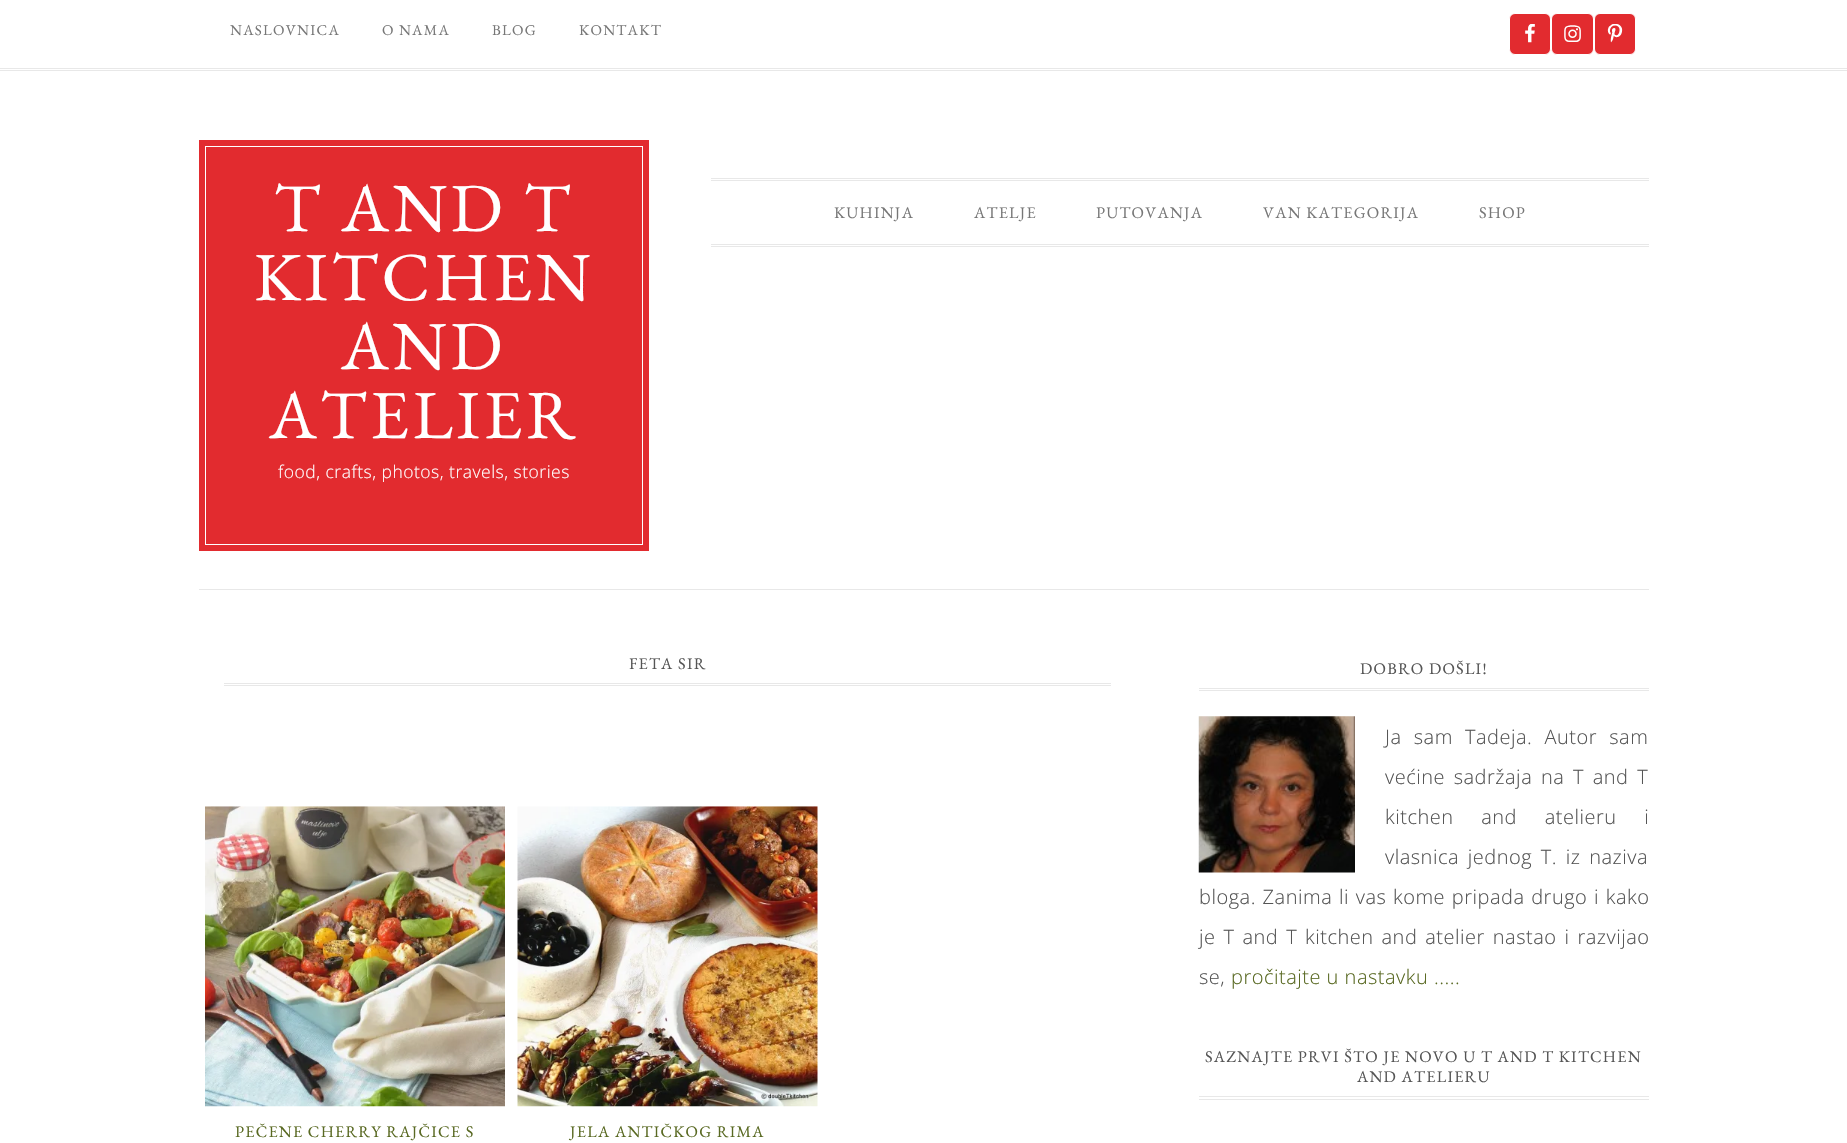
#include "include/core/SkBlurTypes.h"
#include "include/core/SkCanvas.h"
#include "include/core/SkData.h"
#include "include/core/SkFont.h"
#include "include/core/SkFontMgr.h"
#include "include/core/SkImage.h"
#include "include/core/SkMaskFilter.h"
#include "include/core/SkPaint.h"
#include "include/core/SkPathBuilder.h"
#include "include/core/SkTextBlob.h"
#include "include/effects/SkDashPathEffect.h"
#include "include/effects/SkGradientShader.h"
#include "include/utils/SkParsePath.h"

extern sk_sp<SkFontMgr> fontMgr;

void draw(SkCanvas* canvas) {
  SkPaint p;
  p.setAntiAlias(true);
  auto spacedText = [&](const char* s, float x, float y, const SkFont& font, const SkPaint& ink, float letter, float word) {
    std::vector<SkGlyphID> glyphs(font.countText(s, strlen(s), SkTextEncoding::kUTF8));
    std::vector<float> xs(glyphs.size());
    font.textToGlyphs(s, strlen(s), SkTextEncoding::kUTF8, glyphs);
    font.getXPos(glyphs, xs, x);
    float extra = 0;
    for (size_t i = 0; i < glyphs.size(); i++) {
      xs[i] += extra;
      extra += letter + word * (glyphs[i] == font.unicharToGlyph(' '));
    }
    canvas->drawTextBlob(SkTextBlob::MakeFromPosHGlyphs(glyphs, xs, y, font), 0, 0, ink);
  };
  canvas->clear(SK_ColorWHITE);
  p.setColor(SkColorSetRGB(232, 232, 232));
  canvas->drawRect(SkRect::MakeLTRB(0, 68, 1847, 69), p);
  canvas->drawRect(SkRect::MakeLTRB(0, 70, 1847, 71), p);
  p.setColor(SkColorSetRGB(226, 43, 47));
  canvas->drawRoundRect(SkRect::MakeLTRB(1509.5f, 13.5f, 1550.5f, 54.5f), 5.5f, 5.5f, p);
  p.setStyle(SkPaint::kStroke_Style);
  p.setStrokeWidth(1);
  p.setColor(SK_ColorWHITE);
  canvas->drawRoundRect(SkRect::MakeLTRB(1509.5f, 13.5f, 1550.5f, 54.5f), 5.5f, 5.5f, p);
  canvas->drawImageRect(SkImages::DeferredFromEncodedData(SkData::MakeFromFileName("images/1.png")), SkRect::MakeLTRB(1525, 24, 1535, 43), SkSamplingOptions());
  p.setStyle(SkPaint::kFill_Style);
  p.setColor(SkColorSetRGB(226, 43, 47));
  canvas->drawRoundRect(SkRect::MakeLTRB(1551.5f, 13.5f, 1593.5f, 54.5f), 5.5f, 5.5f, p);
  p.setStyle(SkPaint::kStroke_Style);
  p.setColor(SK_ColorWHITE);
  canvas->drawRoundRect(SkRect::MakeLTRB(1551.5f, 13.5f, 1593.5f, 54.5f), 5.5f, 5.5f, p);
  canvas->drawImageRect(SkImages::DeferredFromEncodedData(SkData::MakeFromFileName("images/2.png")), SkRect::MakeLTRB(1564, 25, 1581, 42), SkSamplingOptions());
  p.setStyle(SkPaint::kFill_Style);
  p.setColor(SkColorSetRGB(226, 43, 47));
  canvas->drawRoundRect(SkRect::MakeLTRB(1594.5f, 13.5f, 1635.5f, 54.5f), 5.5f, 5.5f, p);
  p.setStyle(SkPaint::kStroke_Style);
  p.setColor(SK_ColorWHITE);
  canvas->drawRoundRect(SkRect::MakeLTRB(1594.5f, 13.5f, 1635.5f, 54.5f), 5.5f, 5.5f, p);
  canvas->drawImageRect(SkImages::DeferredFromEncodedData(SkData::MakeFromFileName("images/3.png")), SkRect::MakeLTRB(1607, 24, 1623, 43), SkSamplingOptions());
  p.setStyle(SkPaint::kFill_Style);
  p.setColor(SkColorSetRGB(232, 232, 232));
  canvas->drawRect(SkRect::MakeLTRB(199, 589, 1649, 590), p);
  p.setColor(SkColorSetRGB(226, 43, 47));
  canvas->drawRect(SkRect::MakeLTRB(206, 147, 642, 544), p);
  p.setStyle(SkPaint::kStroke_Style);
  p.setStrokeWidth(6);
  canvas->drawRect(SkRect::MakeLTRB(202, 143, 646, 548), p);
  p.setStyle(SkPaint::kFill_Style);
  p.setColor(SkColorSetRGB(232, 232, 232));
  canvas->drawRect(SkRect::MakeLTRB(711, 178, 1649, 179), p);
  canvas->drawRect(SkRect::MakeLTRB(711, 180, 1649, 181), p);
  canvas->drawRect(SkRect::MakeLTRB(711, 244, 1649, 245), p);
  canvas->drawRect(SkRect::MakeLTRB(711, 246, 1649, 247), p);
  canvas->drawRect(SkRect::MakeLTRB(224, 683, 1111, 684), p);
  canvas->drawRect(SkRect::MakeLTRB(224, 685, 1111, 686), p);
  canvas->drawImageRect(SkImages::DeferredFromEncodedData(SkData::MakeFromFileName("images/4.png")), SkRect::MakeLTRB(205, 806, 505, 1107), SkSamplingOptions());
  canvas->drawImageRect(SkImages::DeferredFromEncodedData(SkData::MakeFromFileName("images/5.png")), SkRect::MakeLTRB(517, 806, 818, 1107), SkSamplingOptions());
  canvas->drawRect(SkRect::MakeLTRB(1199, 688, 1649, 689), p);
  canvas->drawRect(SkRect::MakeLTRB(1199, 690, 1649, 691), p);
  canvas->drawImageRect(SkImages::DeferredFromEncodedData(SkData::MakeFromFileName("images/6.png")), SkRect::MakeLTRB(1198, 716, 1355, 873), SkSamplingOptions());
  canvas->drawRect(SkRect::MakeLTRB(1199, 1096, 1649, 1097), p);
  canvas->drawRect(SkRect::MakeLTRB(1199, 1099, 1649, 1100), p);
  SkFont font1(fontMgr->matchFamilyStyle("EB Garamond", SkFontStyle::Normal()), 15);
  font1.setSubpixel(true);
  p.setColor(SkColorSetRGB(119, 119, 119));
  spacedText("NASLOVNICA", 230, 35, font1, p, 1.25f, 0);
  spacedText("O NAMA", 382, 35, font1, p, 1.25f, 0);
  spacedText("BLOG", 492, 35, font1, p, 1.25f, 0);
  spacedText("KONTAKT", 579, 35, font1, p, 1.25f, 0);
  SkFont font2(fontMgr->matchFamilyStyle("EB Garamond", SkFontStyle::Normal()), 68.75f);
  font2.setSubpixel(true);
  p.setColor(SK_ColorWHITE);
  spacedText("T AND T", 274, 231, font2, p, 3.75f, 0);
  spacedText("KITCHEN", 254, 300, font2, p, 3.75f, 0);
  spacedText("AND", 341, 369, font2, p, 3.75f, 0);
  spacedText("ATELIER", 269, 438, font2, p, 3.75f, 0);
  SkFont font3(fontMgr->matchFamilyStyle("Open Sans", SkFontStyle(300, SkFontStyle::kNormal_Width, SkFontStyle::kUpright_Slant)), 17.5f);
  font3.setSubpixel(true);
  spacedText("food, crafts, photos, travels, stories", 278, 478, font3, p, 0.5f, 0);
  SkFont font4(fontMgr->matchFamilyStyle("EB Garamond", SkFontStyle::Normal()), 16.25f);
  font4.setSubpixel(true);
  p.setColor(SkColorSetRGB(119, 119, 119));
  spacedText("KUHINJA", 834, 218, font4, p, 1.25f, 0);
  spacedText("ATELJE", 974, 218, font4, p, 1.25f, 0);
  spacedText("PUTOVANJA", 1096, 218, font4, p, 1.25f, 0);
  spacedText("VAN KATEGORIJA", 1263, 218, font4, p, 1.25f, 0);
  spacedText("SHOP", 1479, 218, font4, p, 1.25f, 0);
  p.setColor(SkColorSetRGB(85, 85, 85));
  spacedText("FETA SIR", 629, 669, font4, p, 1.25f, 0);
  p.setColor(SkColorSetRGB(89, 105, 34));
  spacedText("PEČENE CHERRY RAJČICE S", 235, 1137, font4, p, 1.25f, 0);
  spacedText("JELA ANTIČKOG RIMA", 570, 1137, font4, p, 1.25f, 0);
  p.setColor(SkColorSetRGB(85, 85, 85));
  spacedText("DOBRO DOŠLI!", 1360, 674, font4, p, 1.25f, 0);
  SkFont font5(fontMgr->matchFamilyStyle("Open Sans", SkFontStyle(300, SkFontStyle::kNormal_Width, SkFontStyle::kUpright_Slant)), 20);
  font5.setSubpixel(true);
  spacedText("Ja sam Tadeja. Autor sam", 1385, 744, font5, p, 0.5f, 6.5f);
  spacedText("većine sadržaja na T and T", 1385, 784, font5, p, 0.5f, 3);
  spacedText("kitchen and atelieru i", 1385, 824, font5, p, 0.5f, 22);
  spacedText("vlasnica jednog T. iz naziva", 1385, 864, font5, p, 0.5f, 3);
  spacedText("bloga. Zanima li vas kome pripada drugo i kako", 1199, 904, font5, p, 0.5f, 1);
  spacedText("je T and T kitchen and atelier nastao i razvijao", 1199, 944, font5, p, 0.5f, 2.25f);
  spacedText("se,", 1199, 984, font5, p, 0.5f, 0);
  p.setColor(SkColorSetRGB(89, 105, 34));
  spacedText("pročitajte u nastavku .....", 1231, 984, font5, p, 0.5f, 0);
  p.setColor(SkColorSetRGB(85, 85, 85));
  spacedText("SAZNAJTE PRVI ŠTO JE NOVO U T AND T KITCHEN", 1205, 1062, font4, p, 1.25f, 0);
  spacedText("AND ATELIERU", 1357, 1082, font4, p, 1.25f, 0);
}
